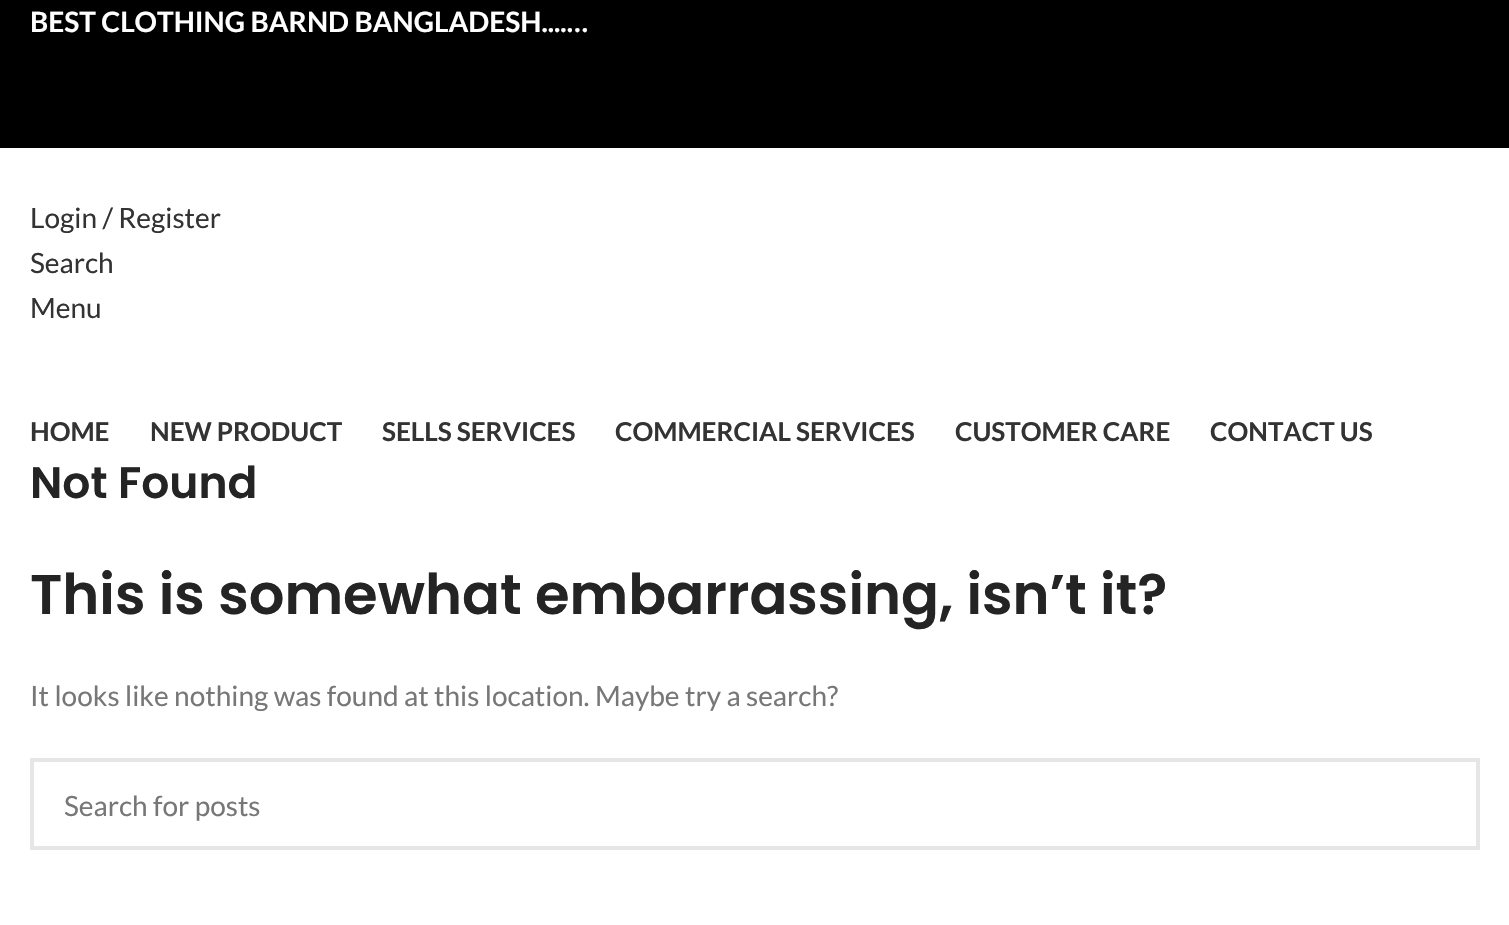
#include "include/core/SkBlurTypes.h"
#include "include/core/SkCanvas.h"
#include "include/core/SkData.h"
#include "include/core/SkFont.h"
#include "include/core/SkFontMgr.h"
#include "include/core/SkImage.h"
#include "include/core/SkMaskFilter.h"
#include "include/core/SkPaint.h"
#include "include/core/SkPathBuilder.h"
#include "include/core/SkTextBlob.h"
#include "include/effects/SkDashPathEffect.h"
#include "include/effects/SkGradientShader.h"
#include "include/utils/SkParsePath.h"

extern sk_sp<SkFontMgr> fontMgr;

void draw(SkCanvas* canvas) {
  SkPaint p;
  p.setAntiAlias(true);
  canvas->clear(SK_ColorWHITE);
  p.setColor(SK_ColorBLACK);
  canvas->drawRect(SkRect::MakeLTRB(0, 0, 1509, 148), p);
  p.setStyle(SkPaint::kStroke_Style);
  p.setStrokeWidth(4);
  p.setColor(SkColorSetRGB(230, 230, 230));
  canvas->drawRect(SkRect::MakeLTRB(32, 760, 1478, 848), p);
  SkFont font1(fontMgr->matchFamilyStyle("Lato", SkFontStyle::Bold()), 28);
  font1.setSubpixel(true);
  p.setStyle(SkPaint::kFill_Style);
  p.setColor(SK_ColorWHITE);
  canvas->drawString("BEST CLOTHING BARND BANGLADESH....…", 30, 32, font1, p);
  SkFont font2(fontMgr->matchFamilyStyle("Lato", SkFontStyle::Normal()), 28);
  font2.setSubpixel(true);
  p.setColor(SkColorSetRGB(51, 51, 51));
  canvas->drawString("Login / Register", 30, 228, font2, p);
  canvas->drawString("Search", 30, 273, font2, p);
  canvas->drawString("Menu", 30, 318, font2, p);
  SkFont font3(fontMgr->matchFamilyStyle("Lato", SkFontStyle::Bold()), 26);
  font3.setSubpixel(true);
  canvas->drawString("HOME", 30, 441, font3, p);
  canvas->drawString("NEW PRODUCT", 150, 441, font3, p);
  canvas->drawString("SELLS SERVICES", 382, 441, font3, p);
  canvas->drawString("COMMERCIAL SERVICES", 615, 441, font3, p);
  canvas->drawString("CUSTOMER CARE", 955, 441, font3, p);
  canvas->drawString("CONTACT US", 1210, 441, font3, p);
  SkFont font4(fontMgr->matchFamilyStyle("Poppins", SkFontStyle(600, SkFontStyle::kNormal_Width, SkFontStyle::kUpright_Slant)), 44);
  font4.setSubpixel(true);
  p.setColor(SkColorSetRGB(36, 36, 36));
  canvas->drawString("Not Found", 30, 498, font4, p);
  SkFont font5(fontMgr->matchFamilyStyle("Poppins", SkFontStyle(600, SkFontStyle::kNormal_Width, SkFontStyle::kUpright_Slant)), 56);
  font5.setSubpixel(true);
  canvas->drawString("This is somewhat embarrassing, isn’t it?", 30, 614, font5, p);
  p.setColor(SkColorSetRGB(119, 119, 119));
  canvas->drawString("It looks like nothing was found at this location. Maybe try a search?", 30, 706, font2, p);
  canvas->drawString("Search for posts", 64, 816, font2, p);
}
